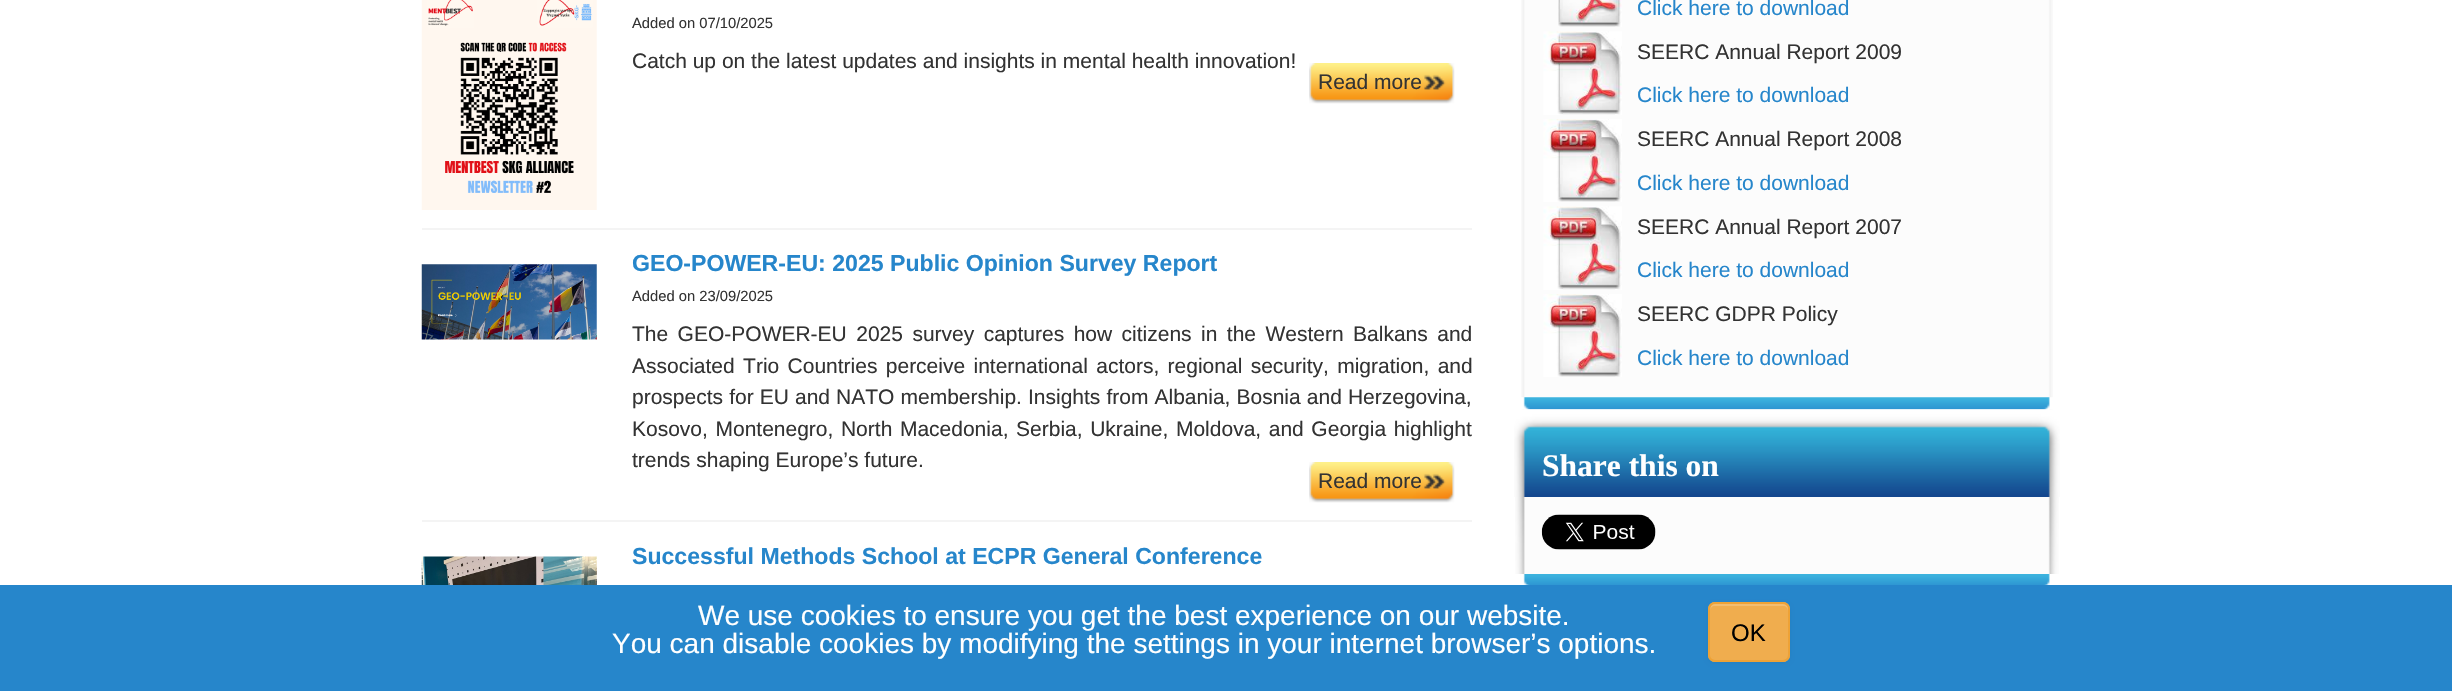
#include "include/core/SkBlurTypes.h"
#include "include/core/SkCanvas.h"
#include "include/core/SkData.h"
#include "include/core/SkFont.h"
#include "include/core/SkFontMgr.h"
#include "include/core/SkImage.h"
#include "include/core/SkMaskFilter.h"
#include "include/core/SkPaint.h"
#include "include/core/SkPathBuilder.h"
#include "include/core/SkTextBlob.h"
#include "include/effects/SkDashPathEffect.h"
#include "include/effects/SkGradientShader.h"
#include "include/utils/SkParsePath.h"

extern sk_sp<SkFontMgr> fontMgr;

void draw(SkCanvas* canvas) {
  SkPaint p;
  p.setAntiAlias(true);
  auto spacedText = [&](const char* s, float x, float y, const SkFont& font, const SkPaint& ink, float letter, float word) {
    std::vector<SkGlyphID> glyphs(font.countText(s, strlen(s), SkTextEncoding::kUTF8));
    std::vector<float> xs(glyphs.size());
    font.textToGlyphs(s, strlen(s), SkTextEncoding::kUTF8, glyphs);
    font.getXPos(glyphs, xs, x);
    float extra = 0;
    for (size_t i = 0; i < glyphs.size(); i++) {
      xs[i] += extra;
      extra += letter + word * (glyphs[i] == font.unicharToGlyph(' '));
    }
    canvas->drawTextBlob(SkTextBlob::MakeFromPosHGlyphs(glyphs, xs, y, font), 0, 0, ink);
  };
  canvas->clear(SK_ColorWHITE);
  p.setColor(SkColorSetRGB(244, 244, 244));
  canvas->drawRect(SkRect::MakeLTRB(422, 228, 1472, 230), p);
  canvas->drawImageRect(SkImages::DeferredFromEncodedData(SkData::MakeFromFileName("images/1.png")), SkRect::MakeLTRB(421, 0, 597, 210), SkSamplingOptions());
  canvas->drawImageRect(SkImages::DeferredFromEncodedData(SkData::MakeFromFileName("images/2.png")), SkRect::MakeLTRB(1309, 63, 1455, 104), SkSamplingOptions());
  canvas->drawRect(SkRect::MakeLTRB(422, 520, 1472, 522), p);
  canvas->drawImageRect(SkImages::DeferredFromEncodedData(SkData::MakeFromFileName("images/3.png")), SkRect::MakeLTRB(421, 264, 597, 340), SkSamplingOptions());
  canvas->drawImageRect(SkImages::DeferredFromEncodedData(SkData::MakeFromFileName("images/2.png")), SkRect::MakeLTRB(1309, 462, 1455, 503), SkSamplingOptions());
  canvas->drawImageRect(SkImages::DeferredFromEncodedData(SkData::MakeFromFileName("images/4.png")), SkRect::MakeLTRB(421, 556, 597, 585), SkSamplingOptions());
  canvas->drawImageRect(SkImages::DeferredFromEncodedData(SkData::MakeFromFileName("images/5.png")), SkRect::MakeLTRB(1521, 0, 2053, 410), SkSamplingOptions());
  canvas->drawImageRect(SkImages::DeferredFromEncodedData(SkData::MakeFromFileName("images/6.png")), SkRect::MakeLTRB(1558, 0, 1622, 27), SkSamplingOptions());
  canvas->drawImageRect(SkImages::DeferredFromEncodedData(SkData::MakeFromFileName("images/7.png")), SkRect::MakeLTRB(1543, 31, 1622, 115), SkSamplingOptions());
  canvas->drawImageRect(SkImages::DeferredFromEncodedData(SkData::MakeFromFileName("images/8.png")), SkRect::MakeLTRB(1543, 119, 1622, 202), SkSamplingOptions());
  canvas->drawImageRect(SkImages::DeferredFromEncodedData(SkData::MakeFromFileName("images/7.png")), SkRect::MakeLTRB(1543, 206, 1622, 290), SkSamplingOptions());
  canvas->drawImageRect(SkImages::DeferredFromEncodedData(SkData::MakeFromFileName("images/9.png")), SkRect::MakeLTRB(1543, 294, 1622, 377), SkSamplingOptions());
  canvas->drawImageRect(SkImages::DeferredFromEncodedData(SkData::MakeFromFileName("images/10.png")), SkRect::MakeLTRB(1521, 397, 2053, 410), SkSamplingOptions());
  canvas->drawImageRect(SkImages::DeferredFromEncodedData(SkData::MakeFromFileName("images/11.png")), SkRect::MakeLTRB(1521, 409, 2053, 410), SkSamplingOptions());
  canvas->drawImageRect(SkImages::DeferredFromEncodedData(SkData::MakeFromFileName("images/12.png")), SkRect::MakeLTRB(1514, 409, 2060, 497), SkSamplingOptions());
  canvas->drawImageRect(SkImages::DeferredFromEncodedData(SkData::MakeFromFileName("images/13.png")), SkRect::MakeLTRB(1515, 497, 2059, 574), SkSamplingOptions());
  canvas->drawImageRect(SkImages::DeferredFromEncodedData(SkData::MakeFromFileName("images/14.png")), SkRect::MakeLTRB(1541, 514, 1656, 550), SkSamplingOptions());
  canvas->drawImageRect(SkImages::DeferredFromEncodedData(SkData::MakeFromFileName("images/15.png")), SkRect::MakeLTRB(1521, 574, 2053, 585), SkSamplingOptions());
  p.setColor(SkColorSetRGB(38, 134, 203));
  canvas->drawRect(SkRect::MakeLTRB(0, 585, 2452, 691), p);
  p.setColor(SkColorSetARGB(13, 0, 0, 0));
  p.setMaskFilter(SkMaskFilter::MakeBlur(kNormal_SkBlurStyle, 2));
  canvas->drawRoundRect(SkRect::MakeLTRB(1708, 604, 1790, 663), 7, 7, p);
  p.setMaskFilter(nullptr);
  p.setColor(SkColorSetRGB(240, 173, 78));
  canvas->drawRoundRect(SkRect::MakeLTRB(1708, 602, 1790, 662), 7, 7, p);
  p.setColor(SkColorSetRGB(243, 189, 113));
  canvas->drawPath(SkPathBuilder().moveTo(1715, 606).lineTo(1783, 606).cubicTo(1786, 606, 1788, 608, 1788, 611).lineTo(1788, 656).lineTo(1788, 659).cubicTo(1790, 656, 1789, 650, 1789, 647).lineTo(1789, 632).cubicTo(1789, 599, 1795, 604, 1761, 604).lineTo(1726, 604).cubicTo(1718, 604, 1710, 601, 1710, 611).cubicTo(1710, 608, 1712, 606, 1715, 606).close().detach(), p);
  p.setStyle(SkPaint::kStroke_Style);
  p.setStrokeWidth(2);
  p.setColor(SkColorSetRGB(238, 162, 54));
  canvas->drawRoundRect(SkRect::MakeLTRB(1709, 603, 1789, 661), 6, 6, p);
  SkFont font1(fontMgr->matchFamilyStyle("Liberation Sans", SkFontStyle::Normal()), 14.75f);
  font1.setSubpixel(true);
  p.setStyle(SkPaint::kFill_Style);
  p.setColor(SkColorSetRGB(51, 51, 51));
  canvas->drawString("Added on 07/10/2025", 632, 28, font1, p);
  SkFont font2(fontMgr->matchFamilyStyle("Liberation Sans", SkFontStyle::Normal()), 21);
  font2.setSubpixel(true);
  canvas->drawString("Catch up on the latest updates and insights in mental health innovation!", 632, 68, font2, p);
  canvas->drawString("Read more", 1318, 89, font2, p);
  SkFont font3(fontMgr->matchFamilyStyle("Liberation Sans", SkFontStyle::Bold()), 23.1f);
  font3.setSubpixel(true);
  p.setColor(SkColorSetRGB(38, 134, 203));
  canvas->drawString("GEO-POWER-EU: 2025 Public Opinion Survey Report", 632, 271, font3, p);
  p.setColor(SkColorSetRGB(51, 51, 51));
  canvas->drawString("Added on 23/09/2025", 632, 301, font1, p);
  spacedText("The GEO-POWER-EU 2025 survey captures how citizens in the Western Balkans and", 632, 341, font2, p, 0, 3.6f);
  spacedText("Associated Trio Countries perceive international actors, regional security, migration, and", 632, 373, font2, p, 0, 2.5f);
  spacedText("prospects for EU and NATO membership. Insights from Albania, Bosnia and Herzegovina,", 632, 404, font2, p, 0, 0.25f);
  spacedText("Kosovo, Montenegro, North Macedonia, Serbia, Ukraine, Moldova, and Georgia highlight", 632, 436, font2, p, 0, 1.75f);
  canvas->drawString("trends shaping Europe’s future.", 632, 467, font2, p);
  canvas->drawString("Read more", 1318, 488, font2, p);
  p.setColor(SkColorSetRGB(38, 134, 203));
  canvas->drawString("Successful Methods School at ECPR General Conference", 632, 564, font3, p);
  canvas->drawString("Click here to download", 1637, 15, font2, p);
  p.setColor(SkColorSetRGB(51, 51, 51));
  canvas->drawString("SEERC Annual Report 2009", 1637, 59, font2, p);
  p.setColor(SkColorSetRGB(38, 134, 203));
  canvas->drawString("Click here to download", 1637, 102, font2, p);
  p.setColor(SkColorSetRGB(51, 51, 51));
  canvas->drawString("SEERC Annual Report 2008", 1637, 146, font2, p);
  p.setColor(SkColorSetRGB(38, 134, 203));
  canvas->drawString("Click here to download", 1637, 190, font2, p);
  p.setColor(SkColorSetRGB(51, 51, 51));
  canvas->drawString("SEERC Annual Report 2007", 1637, 234, font2, p);
  p.setColor(SkColorSetRGB(38, 134, 203));
  canvas->drawString("Click here to download", 1637, 277, font2, p);
  p.setColor(SkColorSetRGB(51, 51, 51));
  canvas->drawString("SEERC GDPR Policy", 1637, 321, font2, p);
  p.setColor(SkColorSetRGB(38, 134, 203));
  canvas->drawString("Click here to download", 1637, 365, font2, p);
  SkFont font4(fontMgr->matchFamilyStyle("Liberation Serif", SkFontStyle::Bold()), 31.5f);
  font4.setSubpixel(true);
  p.setColor(SK_ColorWHITE);
  canvas->drawString("Share this on", 1542, 476, font4, p);
  SkFont font5(fontMgr->matchFamilyStyle("Liberation Sans", SkFontStyle::Normal()), 28);
  font5.setSubpixel(true);
  canvas->drawString("We use cookies to ensure you get the best experience on our website.", 698, 625, font5, p);
  canvas->drawString("You can disable cookies by modifying the settings in your internet browser’s options.", 612, 653, font5, p);
  SkFont font6(fontMgr->matchFamilyStyle("Liberation Sans", SkFontStyle::Normal()), 24);
  font6.setSubpixel(true);
  p.setColor(SK_ColorBLACK);
  canvas->drawString("OK", 1731, 641, font6, p);
}
